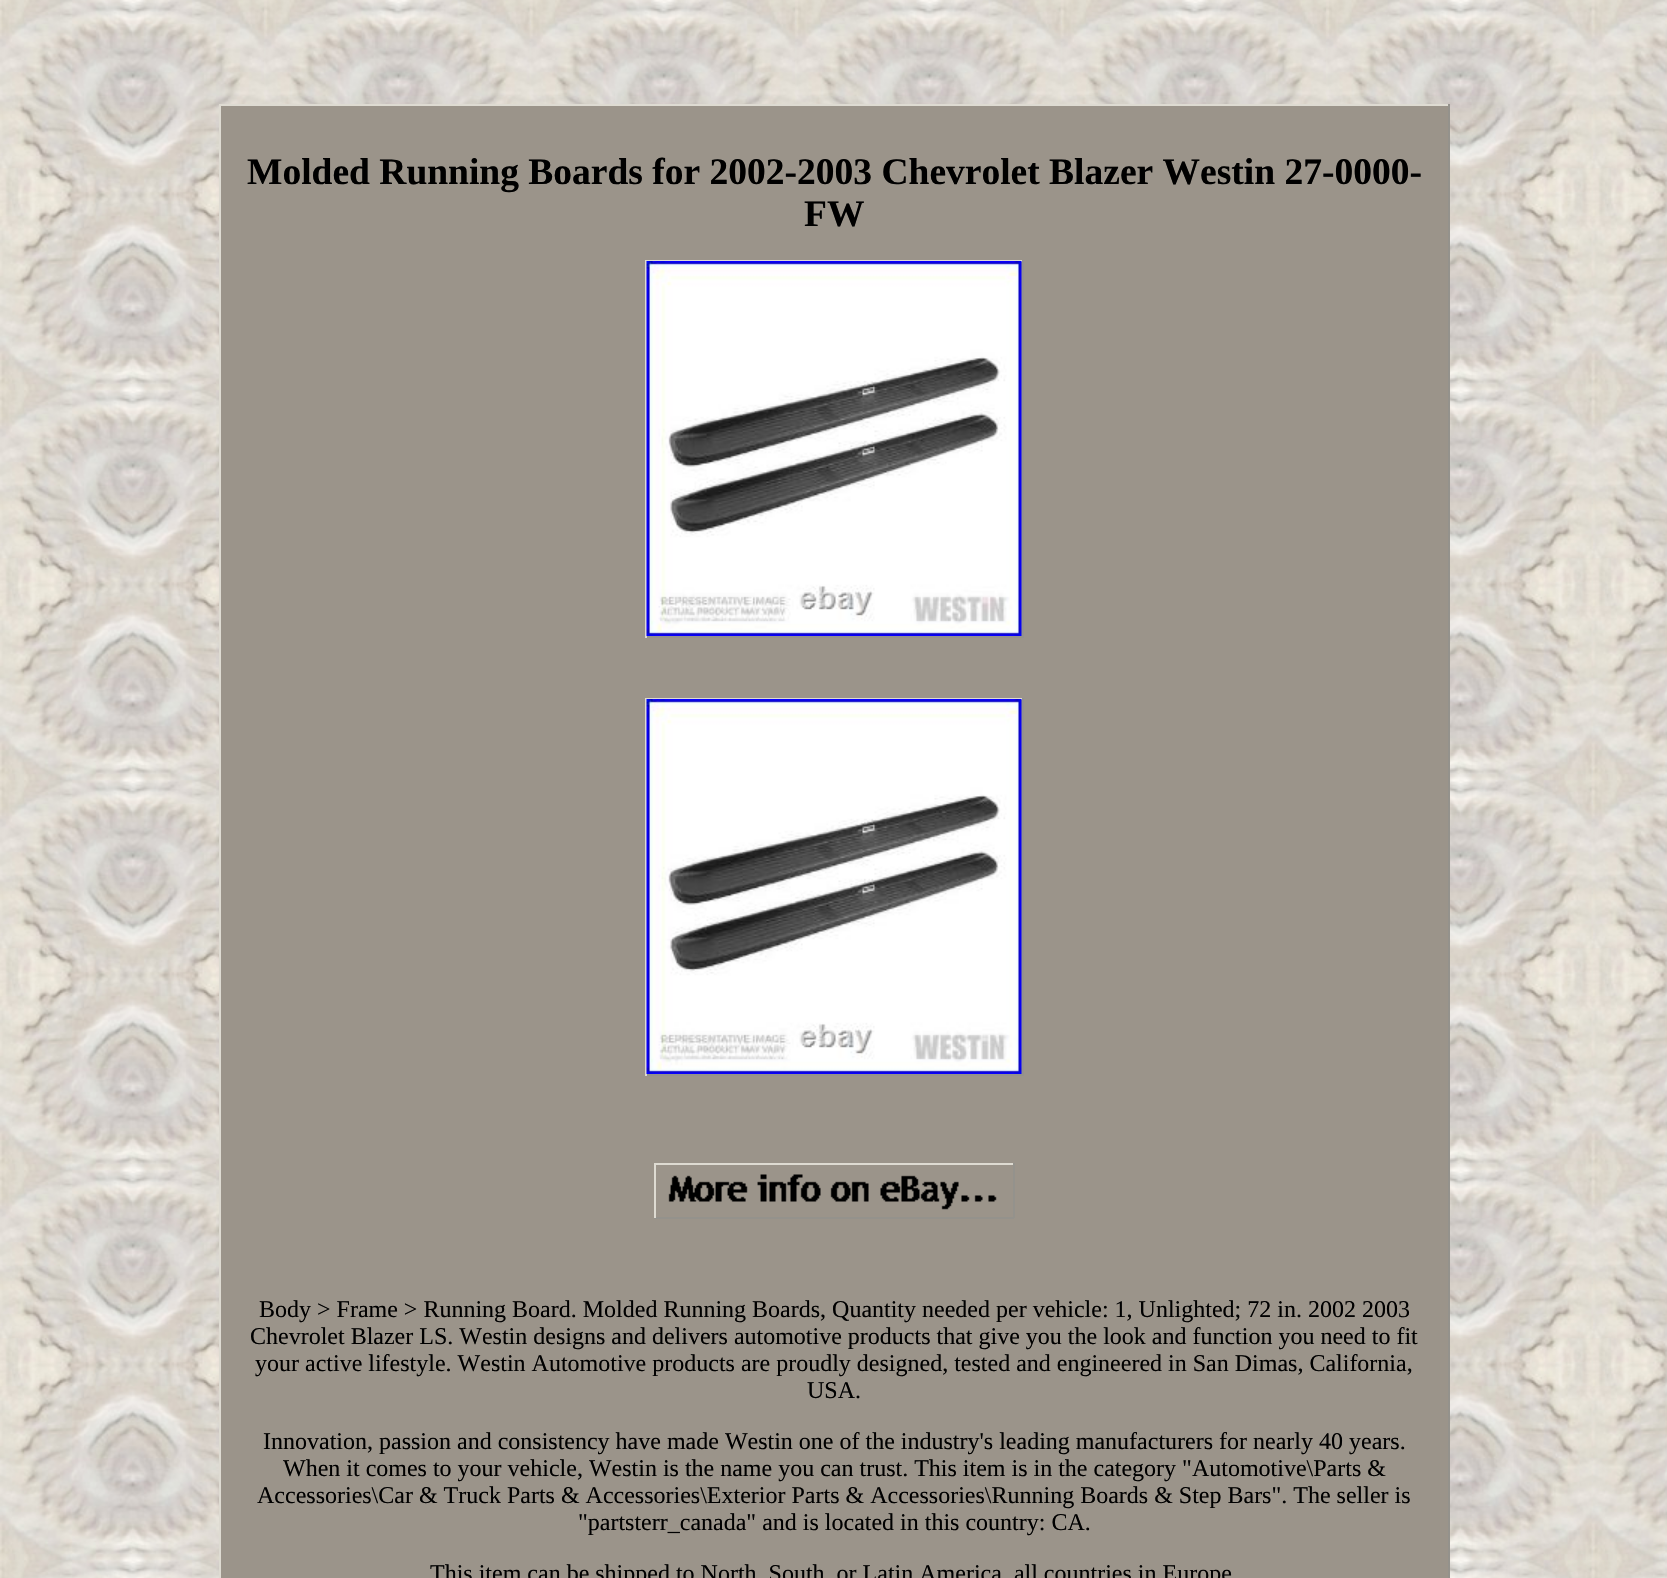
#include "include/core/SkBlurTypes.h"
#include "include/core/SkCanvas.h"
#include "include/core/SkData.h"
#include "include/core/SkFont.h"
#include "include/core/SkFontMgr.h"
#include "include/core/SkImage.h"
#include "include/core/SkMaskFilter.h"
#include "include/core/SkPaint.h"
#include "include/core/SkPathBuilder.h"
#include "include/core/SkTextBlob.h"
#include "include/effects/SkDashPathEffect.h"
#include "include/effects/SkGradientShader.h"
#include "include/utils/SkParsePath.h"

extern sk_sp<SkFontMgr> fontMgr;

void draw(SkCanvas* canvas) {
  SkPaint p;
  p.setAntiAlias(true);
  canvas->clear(SK_ColorWHITE);
  canvas->drawImageRect(SkImages::DeferredFromEncodedData(SkData::MakeFromFileName("images/1.png")), SkRect::MakeLTRB(0, 0, 1667, 1578), SkSamplingOptions());
  p.setColor(SkColorSetRGB(155, 148, 138));
  canvas->drawRect(SkRect::MakeLTRB(221, 106, 1448, 1578), p);
  p.setColor(SkColorSetRGB(222, 219, 210));
  canvas->drawRect(SkRect::MakeLTRB(219, 104, 1449, 106), p);
  p.setColor(SkColorSetRGB(148, 146, 140));
  canvas->drawRect(SkRect::MakeLTRB(1448, 104, 1450, 1578), p);
  p.setColor(SkColorSetRGB(222, 219, 210));
  canvas->drawRect(SkRect::MakeLTRB(219, 104, 221, 1578), p);
  canvas->drawRect(SkRect::MakeLTRB(645, 260, 1023, 262), p);
  p.setColor(SkColorSetRGB(148, 146, 140));
  canvas->drawRect(SkRect::MakeLTRB(1022, 260, 1024, 638), p);
  canvas->drawRect(SkRect::MakeLTRB(645, 636, 1023, 638), p);
  p.setColor(SkColorSetRGB(222, 219, 210));
  canvas->drawRect(SkRect::MakeLTRB(645, 260, 647, 638), p);
  canvas->drawImageRect(SkImages::DeferredFromEncodedData(SkData::MakeFromFileName("images/2.png")), SkRect::MakeLTRB(646, 261, 1022, 636), SkSamplingOptions());
  canvas->drawRect(SkRect::MakeLTRB(645, 698, 1023, 700), p);
  p.setColor(SkColorSetRGB(148, 146, 140));
  canvas->drawRect(SkRect::MakeLTRB(1022, 698, 1024, 1076), p);
  canvas->drawRect(SkRect::MakeLTRB(645, 1074, 1023, 1076), p);
  p.setColor(SkColorSetRGB(222, 219, 210));
  canvas->drawRect(SkRect::MakeLTRB(645, 698, 647, 1076), p);
  canvas->drawImageRect(SkImages::DeferredFromEncodedData(SkData::MakeFromFileName("images/3.png")), SkRect::MakeLTRB(646, 699, 1022, 1074), SkSamplingOptions());
  canvas->drawRect(SkRect::MakeLTRB(654, 1163, 1014, 1165), p);
  p.setColor(SkColorSetRGB(148, 146, 140));
  canvas->drawRect(SkRect::MakeLTRB(1013, 1163, 1015, 1218), p);
  canvas->drawRect(SkRect::MakeLTRB(654, 1217, 1014, 1219), p);
  p.setColor(SkColorSetRGB(222, 219, 210));
  canvas->drawRect(SkRect::MakeLTRB(654, 1163, 656, 1218), p);
  canvas->drawImageRect(SkImages::DeferredFromEncodedData(SkData::MakeFromFileName("images/4.png")), SkRect::MakeLTRB(668, 1174, 997, 1210), SkSamplingOptions());
  SkFont font1(fontMgr->matchFamilyStyle("Liberation Serif", SkFontStyle::Bold()), 37.5f);
  font1.setSubpixel(true);
  p.setColor(SK_ColorBLACK);
  canvas->drawString("Molded Running Boards for 2002-2003 Chevrolet Blazer Westin 27-0000-", 247, 184, font1, p);
  canvas->drawString("FW", 804, 226, font1, p);
  SkFont font2(fontMgr->matchFamilyStyle("Liberation Serif", SkFontStyle::Normal()), 24);
  font2.setSubpixel(true);
  canvas->drawString("Body > Frame > Running Board. Molded Running Boards, Quantity needed per vehicle: 1, Unlighted; 72 in. 2002 2003", 259, 1317, font2, p);
  canvas->drawString("Chevrolet Blazer LS. Westin designs and delivers automotive products that give you the look and function you need to fit", 250, 1344, font2, p);
  canvas->drawString("your active lifestyle. Westin Automotive products are proudly designed, tested and engineered in San Dimas, California,", 255, 1371, font2, p);
  canvas->drawString("USA.", 807, 1398, font2, p);
  canvas->drawString("Innovation, passion and consistency have made Westin one of the industry's leading manufacturers for nearly 40 years.", 263, 1449, font2, p);
  canvas->drawString("When it comes to your vehicle, Westin is the name you can trust. This item is in the category \"Automotive\\Parts &", 283, 1476, font2, p);
  canvas->drawString("Accessories\\Car & Truck Parts & Accessories\\Exterior Parts & Accessories\\Running Boards & Step Bars\". The seller is", 257, 1503, font2, p);
  canvas->drawString("\"partsterr_canada\" and is located in this country: CA.", 578, 1530, font2, p);
  canvas->drawString("This item can be shipped to North, South, or Latin America, all countries in Europe", 430, 1581, font2, p);
}
